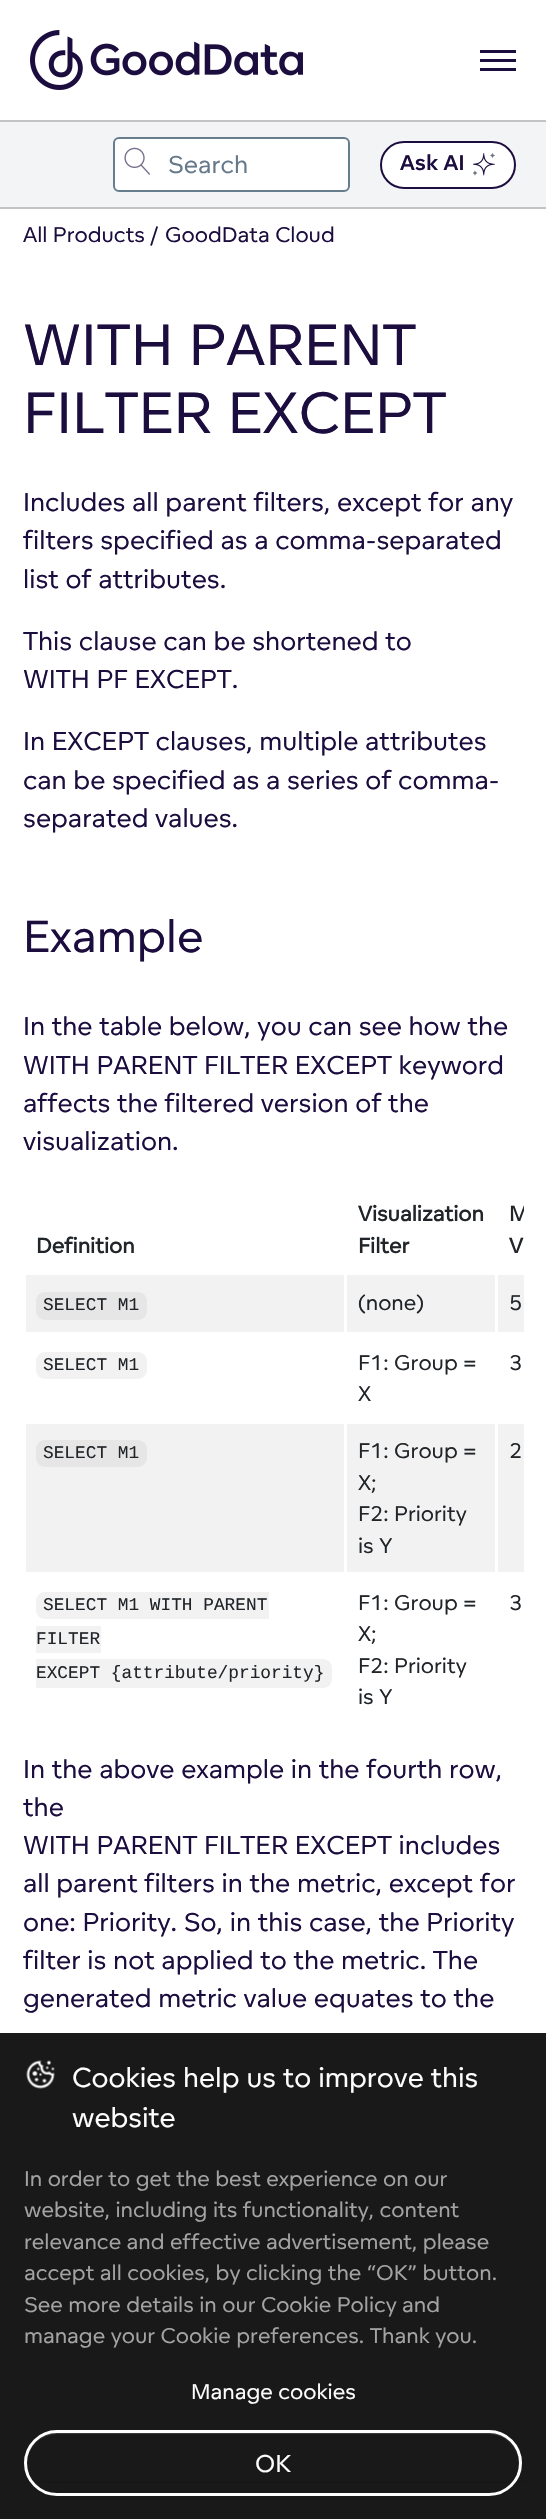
#include "include/core/SkBlurTypes.h"
#include "include/core/SkCanvas.h"
#include "include/core/SkData.h"
#include "include/core/SkFont.h"
#include "include/core/SkFontMgr.h"
#include "include/core/SkImage.h"
#include "include/core/SkMaskFilter.h"
#include "include/core/SkPaint.h"
#include "include/core/SkPathBuilder.h"
#include "include/core/SkTextBlob.h"
#include "include/effects/SkDashPathEffect.h"
#include "include/effects/SkGradientShader.h"
#include "include/utils/SkParsePath.h"

extern sk_sp<SkFontMgr> fontMgr;

void draw(SkCanvas* canvas) {
  SkPaint p;
  p.setAntiAlias(true);
  canvas->clear(SK_ColorWHITE);
  canvas->drawImageRect(SkImages::DeferredFromEncodedData(SkData::MakeFromFileName("images/1.png")), SkRect::MakeLTRB(30, 30, 303, 90), SkSamplingOptions());
  p.setColor(SkColorSetRGB(28, 13, 63));
  canvas->drawRect(SkRect::MakeLTRB(480, 50, 516, 53), p);
  canvas->drawRect(SkRect::MakeLTRB(480, 59, 516, 62), p);
  canvas->drawRect(SkRect::MakeLTRB(480, 68, 516, 71), p);
  p.setColor(SkColorSetRGB(242, 244, 246));
  canvas->drawRect(SkRect::MakeLTRB(0, 122, 546, 207), p);
  p.setColor(SkColorSetRGB(194, 195, 197));
  canvas->drawRect(SkRect::MakeLTRB(0, 120, 546, 122), p);
  canvas->drawRect(SkRect::MakeLTRB(0, 207, 546, 209), p);
  p.setColor(SK_ColorWHITE);
  canvas->drawRoundRect(SkRect::MakeLTRB(113, 137, 350, 192), 6, 6, p);
  canvas->drawImageRect(SkImages::DeferredFromEncodedData(SkData::MakeFromFileName("images/2.png")), SkRect::MakeLTRB(124, 147, 150, 175), SkSamplingOptions());
  p.setStyle(SkPaint::kStroke_Style);
  p.setStrokeWidth(2);
  p.setColor(SkColorSetRGB(102, 125, 142));
  canvas->drawRoundRect(SkRect::MakeLTRB(114, 138, 349, 191), 5, 5, p);
  p.setStyle(SkPaint::kFill_Style);
  p.setColor(SK_ColorWHITE);
  canvas->drawRoundRect(SkRect::MakeLTRB(381, 142, 515, 188), 23, 23, p);
  p.setStyle(SkPaint::kStroke_Style);
  p.setColor(SkColorSetRGB(28, 13, 63));
  canvas->drawRoundRect(SkRect::MakeLTRB(381, 142, 515, 188), 23, 23, p);
  canvas->drawImageRect(SkImages::DeferredFromEncodedData(SkData::MakeFromFileName("images/3.png")), SkRect::MakeLTRB(473, 153, 495, 176), SkSamplingOptions());
  p.setStyle(SkPaint::kFill_Style);
  p.setColor(SkColorSetRGB(242, 242, 242));
  canvas->drawRect(SkRect::MakeLTRB(26, 1275, 344, 1332), p);
  p.setColor(SkColorSetRGB(230, 230, 230));
  canvas->drawRoundRect(SkRect::MakeLTRB(36, 1292, 147, 1320), 9, 9, p);
  p.setColor(SkColorSetRGB(242, 242, 242));
  canvas->drawRect(SkRect::MakeLTRB(347, 1275, 495, 1332), p);
  canvas->drawRect(SkRect::MakeLTRB(498, 1275, 524, 1332), p);
  canvas->drawRoundRect(SkRect::MakeLTRB(36, 1352, 147, 1379), 9, 9, p);
  canvas->drawRect(SkRect::MakeLTRB(26, 1424, 344, 1572), p);
  p.setColor(SkColorSetRGB(230, 230, 230));
  canvas->drawRoundRect(SkRect::MakeLTRB(36, 1440, 147, 1467), 9, 9, p);
  p.setColor(SkColorSetRGB(242, 242, 242));
  canvas->drawRect(SkRect::MakeLTRB(347, 1424, 495, 1572), p);
  canvas->drawRect(SkRect::MakeLTRB(498, 1424, 524, 1572), p);
  canvas->drawPath(SkPathBuilder().moveTo(45, 1592).lineTo(269, 1592).lineTo(269, 1619).lineTo(45, 1619).cubicTo(40, 1619, 36, 1615, 36, 1610).lineTo(36, 1601).cubicTo(36, 1596, 40, 1592, 45, 1592).close().detach(), p);
  canvas->drawRect(SkRect::MakeLTRB(36, 1626, 101, 1653), p);
  canvas->drawPath(SkPathBuilder().moveTo(36, 1659).lineTo(323, 1659).cubicTo(328, 1659, 332, 1663, 332, 1668).lineTo(332, 1679).cubicTo(332, 1684, 328, 1688, 323, 1688).lineTo(36, 1688).close().detach(), p);
  p.setColor(SkColorSetRGB(248, 249, 250));
  canvas->drawRect(SkRect::MakeLTRB(23, 2264, 524, 2345), p);
  canvas->drawRect(SkRect::MakeLTRB(23, 2369, 524, 2451), p);
  p.setColor(SkColorSetRGB(221, 228, 235));
  canvas->drawRect(SkRect::MakeLTRB(23, 2481, 524, 2483), p);
  p.setColor(SkColorSetARGB(230, 0, 0, 0));
  canvas->drawRect(SkRect::MakeLTRB(0, 2033, 546, 2519), p);
  canvas->drawImageRect(SkImages::DeferredFromEncodedData(SkData::MakeFromFileName("images/4.png")), SkRect::MakeLTRB(26, 2060, 55, 2089), SkSamplingOptions());
  p.setColor(SkColorSetRGB(59, 59, 60));
  canvas->drawPath(SkPathBuilder().moveTo(57, 2434).lineTo(489, 2434).cubicTo(506, 2434, 519, 2448, 519, 2464).cubicTo(519, 2447, 506, 2433, 489, 2433).lineTo(57, 2433).cubicTo(40, 2433, 27, 2447, 27, 2464).cubicTo(27, 2448, 40, 2434, 57, 2434).close().detach(), p);
  p.setStyle(SkPaint::kStroke_Style);
  p.setStrokeWidth(3);
  p.setColor(SK_ColorWHITE);
  canvas->drawRoundRect(SkRect::MakeLTRB(25.5f, 2431.5f, 520.5f, 2494.5f), 31.5f, 31.5f, p);
  SkFont font1(fontMgr->matchFamilyStyle("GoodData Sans", SkFontStyle::Normal()), 24);
  font1.setSubpixel(true);
  p.setStyle(SkPaint::kFill_Style);
  p.setColor(SkColorSetRGB(101, 121, 139));
  canvas->drawString("Search", 168, 173, font1, p);
  SkFont font2(fontMgr->matchFamilyStyle("GoodData Sans", SkFontStyle(600, SkFontStyle::kNormal_Width, SkFontStyle::kUpright_Slant)), 21);
  font2.setSubpixel(true);
  p.setColor(SkColorSetRGB(28, 13, 63));
  canvas->drawString("Ask AI", 400, 170, font2, p);
  SkFont font3(fontMgr->matchFamilyStyle("GoodData Sans", SkFontStyle::Normal()), 21);
  font3.setSubpixel(true);
  canvas->drawString("All Products", 23, 242, font3, p);
  canvas->drawString("/", 150, 242, font3, p);
  canvas->drawString("GoodData Cloud", 165, 242, font3, p);
  SkFont font4(fontMgr->matchFamilyStyle("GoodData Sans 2", SkFontStyle::Normal()), 57.5f);
  font4.setSubpixel(true);
  canvas->drawString("WITH PARENT", 23, 365, font4, p);
  canvas->drawString("FILTER EXCEPT", 23, 433, font4, p);
  SkFont font5(fontMgr->matchFamilyStyle("GoodData Sans", SkFontStyle::Normal()), 25.5f);
  font5.setSubpixel(true);
  canvas->drawString("Includes all parent filters, except for any", 23, 511, font5, p);
  canvas->drawString("filters specified as a comma-separated", 23, 549, font5, p);
  canvas->drawString("list of attributes.", 23, 588, font5, p);
  canvas->drawString("This clause can be shortened to", 23, 650, font5, p);
  canvas->drawString("WITH PF EXCEPT.", 23, 688, font5, p);
  canvas->drawString("In EXCEPT clauses, multiple attributes", 23, 750, font5, p);
  canvas->drawString("can be specified as a series of comma-", 23, 789, font5, p);
  canvas->drawString("separated values.", 23, 827, font5, p);
  SkFont font6(fontMgr->matchFamilyStyle("GoodData Sans 2", SkFontStyle::Normal()), 44.5f);
  font6.setSubpixel(true);
  canvas->drawString("Example", 23, 952, font6, p);
  canvas->drawString("In the table below, you can see how the", 23, 1035, font5, p);
  canvas->drawString("WITH PARENT FILTER EXCEPT keyword", 23, 1074, font5, p);
  canvas->drawString("affects the filtered version of the", 23, 1112, font5, p);
  canvas->drawString("visualization.", 23, 1150, font5, p);
  SkFont font7(fontMgr->matchFamilyStyle("GoodData Sans", SkFontStyle::Bold()), 21);
  font7.setSubpixel(true);
  p.setColor(SkColorSetRGB(33, 37, 41));
  canvas->drawString("Definition", 36, 1253, font7, p);
  canvas->drawString("Visualization", 358, 1221, font7, p);
  canvas->drawString("Filter", 358, 1253, font7, p);
  canvas->save();
  canvas->clipRect(SkRect::MakeLTRB(23, 1184, 524, 1725));
  canvas->drawString("M", 509, 1221, font7, p);
  canvas->restore();
  canvas->drawString("V", 509, 1253, font7, p);
  SkFont font8(fontMgr->matchFamilyStyle("Liberation Mono", SkFontStyle::Normal()), 17.8f);
  font8.setSubpixel(true);
  canvas->drawString("SELECT M1", 43, 1310, font8, p);
  canvas->drawString("(none)", 358, 1310, font3, p);
  canvas->drawString("5", 509, 1310, font3, p);
  canvas->drawString("SELECT M1", 43, 1370, font8, p);
  canvas->drawString("F1: Group =", 358, 1370, font3, p);
  canvas->drawString("X", 358, 1401, font3, p);
  canvas->drawString("3", 509, 1370, font3, p);
  canvas->drawString("SELECT M1", 43, 1458, font8, p);
  canvas->drawString("F1: Group =", 358, 1458, font3, p);
  canvas->drawString("X;", 358, 1490, font3, p);
  canvas->drawString("F2: Priority", 358, 1521, font3, p);
  canvas->drawString("is Y", 358, 1553, font3, p);
  canvas->drawString("2", 509, 1458, font3, p);
  canvas->drawString("SELECT M1 WITH PARENT", 43, 1610, font8, p);
  canvas->drawString("FILTER", 36, 1644, font8, p);
  canvas->drawString("EXCEPT {attribute/priority}", 36, 1678, font8, p);
  canvas->drawString("F1: Group =", 358, 1610, font3, p);
  canvas->drawString("X;", 358, 1641, font3, p);
  canvas->drawString("F2: Priority", 358, 1673, font3, p);
  canvas->drawString("is Y", 358, 1704, font3, p);
  canvas->drawString("3", 509, 1610, font3, p);
  p.setColor(SkColorSetRGB(28, 13, 63));
  canvas->drawString("In the above example in the fourth row,", 23, 1778, font5, p);
  canvas->drawString("the", 23, 1816, font5, p);
  canvas->drawString("WITH PARENT FILTER EXCEPT includes", 23, 1854, font5, p);
  canvas->drawString("all parent filters in the metric, except for", 23, 1892, font5, p);
  canvas->drawString("one: Priority. So, in this case, the Priority", 23, 1931, font5, p);
  canvas->drawString("filter is not applied to the metric. The", 23, 1969, font5, p);
  canvas->drawString("generated metric value equates to the", 23, 2007, font5, p);
  SkFont font9(fontMgr->matchFamilyStyle("GoodData Sans", SkFontStyle::Normal()), 27);
  font9.setSubpixel(true);
  p.setColor(SK_ColorWHITE);
  canvas->drawString("Cookies help us to improve this", 72, 2087, font9, p);
  canvas->drawString("website", 72, 2127, font9, p);
  p.setColor(SkColorSetRGB(163, 163, 163));
  canvas->drawString("In order to get the best experience on our", 24, 2186, font3, p);
  canvas->drawString("website, including its functionality, content", 24, 2217, font3, p);
  canvas->drawString("relevance and effective advertisement, please", 24, 2249, font3, p);
  canvas->drawString("accept all cookies, by clicking the “OK” button.", 24, 2280, font3, p);
  canvas->drawString("See more details in our", 24, 2312, font3, p);
  canvas->drawString("Cookie Policy", 261, 2312, font3, p);
  canvas->drawString("and", 402, 2312, font3, p);
  canvas->drawString("manage your Cookie preferences. Thank you.", 24, 2343, font3, p);
  p.setColor(SK_ColorWHITE);
  canvas->drawString("Manage cookies", 191, 2399, font3, p);
  canvas->drawString("OK", 255, 2472, font1, p);
}
